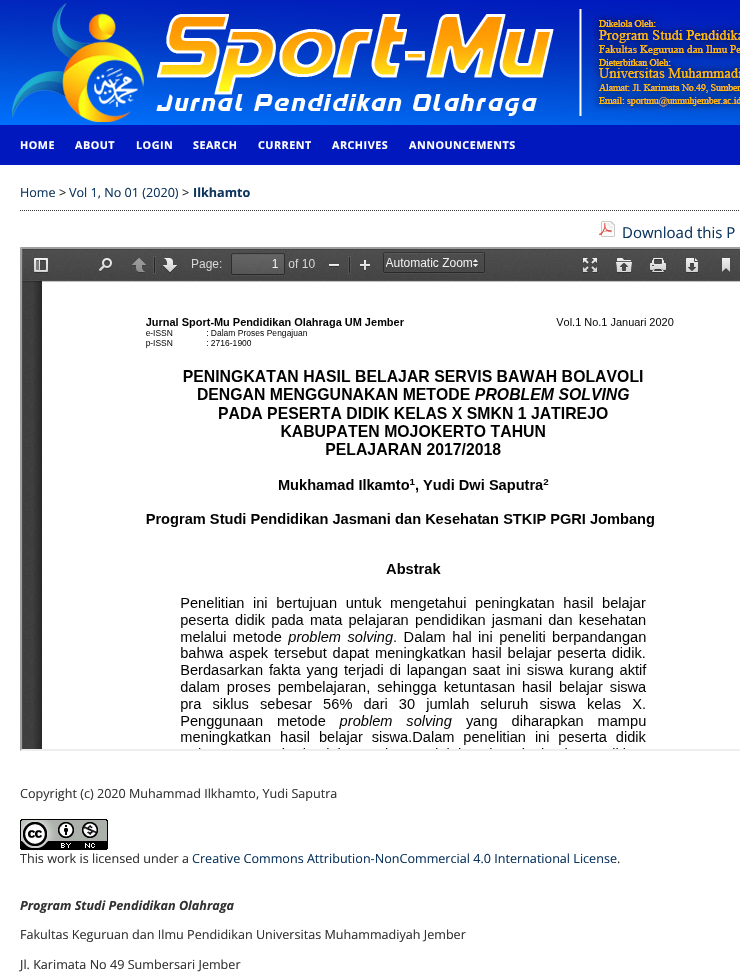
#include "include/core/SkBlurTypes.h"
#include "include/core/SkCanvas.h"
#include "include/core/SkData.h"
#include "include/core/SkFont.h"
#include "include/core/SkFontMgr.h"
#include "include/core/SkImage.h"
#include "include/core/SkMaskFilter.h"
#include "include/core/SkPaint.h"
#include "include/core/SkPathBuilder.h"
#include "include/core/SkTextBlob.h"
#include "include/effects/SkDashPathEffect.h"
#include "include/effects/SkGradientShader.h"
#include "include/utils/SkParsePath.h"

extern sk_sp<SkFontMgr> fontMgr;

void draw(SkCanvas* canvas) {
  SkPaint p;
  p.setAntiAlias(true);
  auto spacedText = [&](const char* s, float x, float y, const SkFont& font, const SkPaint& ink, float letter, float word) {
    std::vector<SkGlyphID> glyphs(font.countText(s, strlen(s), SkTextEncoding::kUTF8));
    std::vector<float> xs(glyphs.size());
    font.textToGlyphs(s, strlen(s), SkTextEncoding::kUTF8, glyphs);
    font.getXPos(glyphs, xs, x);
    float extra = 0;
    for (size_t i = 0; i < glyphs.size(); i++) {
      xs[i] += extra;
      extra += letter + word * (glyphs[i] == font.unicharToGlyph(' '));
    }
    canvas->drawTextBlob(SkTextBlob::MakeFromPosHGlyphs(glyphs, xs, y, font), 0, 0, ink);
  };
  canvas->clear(SK_ColorWHITE);
  canvas->drawImageRect(SkImages::DeferredFromEncodedData(SkData::MakeFromFileName("images/1.png")), SkRect::MakeLTRB(0, 0, 740, 125), SkSamplingOptions());
  p.setColor(SkColorSetRGB(0, 24, 190));
  canvas->drawRect(SkRect::MakeLTRB(0, 125, 740, 165), p);
  p.setStyle(SkPaint::kStroke_Style);
  p.setStrokeWidth(1);
  p.setColor(SkColorSetRGB(51, 51, 51));
  p.setPathEffect(SkDashPathEffect::Make({{1, 1}}, 0));
  canvas->drawPath(SkPathBuilder().moveTo(20, 210.5f).lineTo(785, 210.5f).detach(), p);
  p.setPathEffect(nullptr);
  canvas->drawImageRect(SkImages::DeferredFromEncodedData(SkData::MakeFromFileName("images/2.png")), SkRect::MakeLTRB(599, 221, 615, 237), SkSamplingOptions());
  p.setStyle(SkPaint::kFill_Style);
  p.setColor(SkColorSetRGB(159, 159, 159));
  canvas->drawPath(SkPathBuilder().moveTo(20, 247).lineTo(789, 247).lineTo(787, 249).lineTo(22, 249).close().detach(), p);
  p.setColor(SkColorSetRGB(238, 238, 238));
  canvas->drawPath(SkPathBuilder().moveTo(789, 751).lineTo(20, 751).lineTo(22, 749).lineTo(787, 749).close().detach(), p);
  p.setColor(SkColorSetRGB(159, 159, 159));
  canvas->drawPath(SkPathBuilder().moveTo(20, 751).lineTo(20, 247).lineTo(22, 249).lineTo(22, 749).close().detach(), p);
  canvas->drawImageRect(SkImages::DeferredFromEncodedData(SkData::MakeFromFileName("images/3.png")), SkRect::MakeLTRB(22, 249, 740, 749), SkSamplingOptions());
  canvas->drawImageRect(SkImages::DeferredFromEncodedData(SkData::MakeFromFileName("images/4.png")), SkRect::MakeLTRB(20, 819, 108, 850), SkSamplingOptions());
  SkFont font1(fontMgr->matchFamilyStyle("Open Sans", SkFontStyle::Bold()), 10.75f);
  font1.setSubpixel(true);
  p.setColor(SK_ColorWHITE);
  spacedText("HOME", 20, 149, font1, p, 0.5f, 0);
  spacedText("ABOUT", 75, 149, font1, p, 0.5f, 0);
  spacedText("LOGIN", 136, 149, font1, p, 0.5f, 0);
  spacedText("SEARCH", 193, 149, font1, p, 0.5f, 0);
  spacedText("CURRENT", 258, 149, font1, p, 0.5f, 0);
  spacedText("ARCHIVES", 332, 149, font1, p, 0.5f, 0);
  spacedText("ANNOUNCEMENTS", 409, 149, font1, p, 0.5f, 0);
  SkFont font2(fontMgr->matchFamilyStyle("Open Sans", SkFontStyle::Normal()), 12.6f);
  font2.setSubpixel(true);
  p.setColor(SkColorSetRGB(13, 53, 94));
  canvas->drawString("Home", 20, 197, font2, p);
  p.setColor(SkColorSetRGB(51, 51, 51));
  canvas->drawString(">", 59, 197, font2, p);
  p.setColor(SkColorSetRGB(13, 53, 94));
  canvas->drawString("Vol 1, No 01 (2020)", 69, 197, font2, p);
  p.setColor(SkColorSetRGB(51, 51, 51));
  canvas->drawString(">", 182, 197, font2, p);
  SkFont font3(fontMgr->matchFamilyStyle("Open Sans", SkFontStyle::Bold()), 12.6f);
  font3.setSubpixel(true);
  p.setColor(SkColorSetRGB(13, 53, 94));
  canvas->drawString("Ilkhamto", 193, 197, font3, p);
  SkFont font4(fontMgr->matchFamilyStyle("Open Sans", SkFontStyle::Normal()), 15);
  font4.setSubpixel(true);
  canvas->drawString("Download this P", 622, 238, font4, p);
  p.setColor(SkColorSetRGB(51, 51, 51));
  canvas->drawString("Copyright (c) 2020 Muhammad Ilkhamto, Yudi Saputra", 20, 798, font2, p);
  canvas->drawString("This work is licensed under a", 20, 863, font2, p);
  p.setColor(SkColorSetRGB(13, 53, 94));
  canvas->drawString("Creative Commons Attribution-NonCommercial 4.0 International License", 192, 863, font2, p);
  p.setColor(SkColorSetRGB(51, 51, 51));
  canvas->drawString(".", 617, 863, font2, p);
  SkFont font5(fontMgr->matchFamilyStyle("Open Sans", SkFontStyle::BoldItalic()), 12.6f);
  font5.setSubpixel(true);
  canvas->drawString("Program Studi Pendidikan Olahraga", 20, 910, font5, p);
  canvas->drawString("Fakultas Keguruan dan Ilmu Pendidikan Universitas Muhammadiyah Jember", 20, 939, font2, p);
  canvas->drawString("Jl. Karimata No 49 Sumbersari Jember", 20, 969, font2, p);
}
